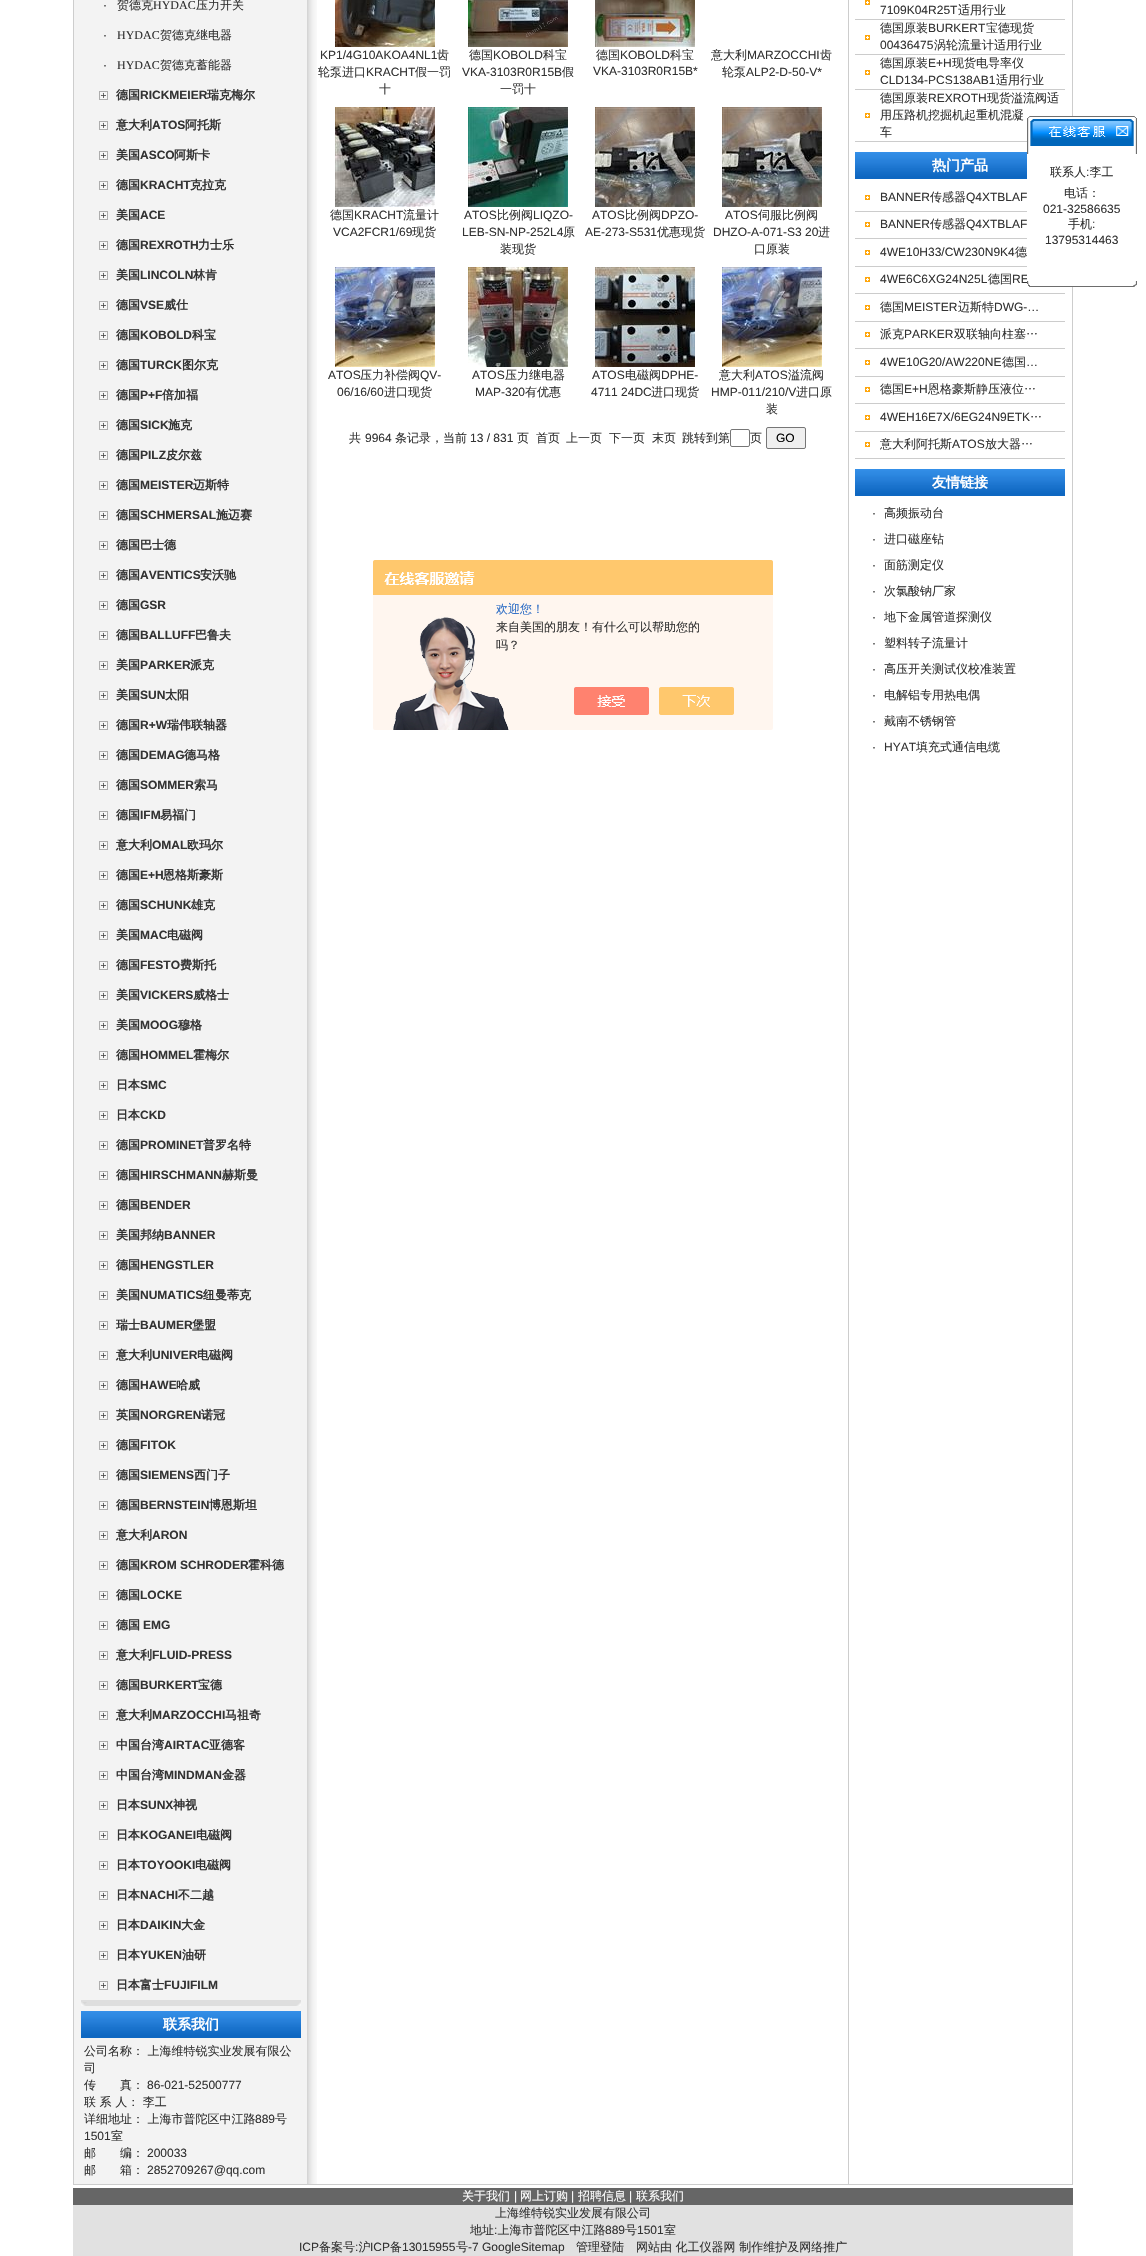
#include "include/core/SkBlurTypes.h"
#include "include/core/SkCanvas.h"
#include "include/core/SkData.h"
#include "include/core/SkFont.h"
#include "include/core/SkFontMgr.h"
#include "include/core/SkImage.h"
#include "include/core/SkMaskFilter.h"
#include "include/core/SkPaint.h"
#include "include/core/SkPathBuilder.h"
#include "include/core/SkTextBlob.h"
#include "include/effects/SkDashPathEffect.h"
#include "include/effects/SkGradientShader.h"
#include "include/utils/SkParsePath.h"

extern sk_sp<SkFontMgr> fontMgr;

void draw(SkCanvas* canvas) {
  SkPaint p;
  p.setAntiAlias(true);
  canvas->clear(SK_ColorWHITE);
  p.setColor(SkColorSetRGB(205, 205, 205));
  canvas->drawRect(SkRect::MakeLTRB(73, 2184, 1073, 2185), p);
  p.setColor(SkColorSetRGB(243, 243, 243));
  canvas->drawRect(SkRect::MakeLTRB(74, 0, 307, 2184), p);
  p.setColor(SkColorSetRGB(205, 205, 205));
  canvas->drawRect(SkRect::MakeLTRB(73, 0, 74, 2185), p);
  canvas->drawImageRect(SkImages::DeferredFromEncodedData(SkData::MakeFromFileName("images/1.png")), SkRect::MakeLTRB(99, 91, 108, 100), SkSamplingOptions());
  canvas->drawImageRect(SkImages::DeferredFromEncodedData(SkData::MakeFromFileName("images/1.png")), SkRect::MakeLTRB(99, 121, 108, 130), SkSamplingOptions());
  canvas->drawImageRect(SkImages::DeferredFromEncodedData(SkData::MakeFromFileName("images/1.png")), SkRect::MakeLTRB(99, 151, 108, 160), SkSamplingOptions());
  canvas->drawImageRect(SkImages::DeferredFromEncodedData(SkData::MakeFromFileName("images/1.png")), SkRect::MakeLTRB(99, 181, 108, 190), SkSamplingOptions());
  canvas->drawImageRect(SkImages::DeferredFromEncodedData(SkData::MakeFromFileName("images/1.png")), SkRect::MakeLTRB(99, 211, 108, 220), SkSamplingOptions());
  canvas->drawImageRect(SkImages::DeferredFromEncodedData(SkData::MakeFromFileName("images/1.png")), SkRect::MakeLTRB(99, 241, 108, 250), SkSamplingOptions());
  canvas->drawImageRect(SkImages::DeferredFromEncodedData(SkData::MakeFromFileName("images/1.png")), SkRect::MakeLTRB(99, 271, 108, 280), SkSamplingOptions());
  canvas->drawImageRect(SkImages::DeferredFromEncodedData(SkData::MakeFromFileName("images/1.png")), SkRect::MakeLTRB(99, 301, 108, 310), SkSamplingOptions());
  canvas->drawImageRect(SkImages::DeferredFromEncodedData(SkData::MakeFromFileName("images/1.png")), SkRect::MakeLTRB(99, 331, 108, 340), SkSamplingOptions());
  canvas->drawImageRect(SkImages::DeferredFromEncodedData(SkData::MakeFromFileName("images/1.png")), SkRect::MakeLTRB(99, 361, 108, 370), SkSamplingOptions());
  canvas->drawImageRect(SkImages::DeferredFromEncodedData(SkData::MakeFromFileName("images/1.png")), SkRect::MakeLTRB(99, 391, 108, 400), SkSamplingOptions());
  canvas->drawImageRect(SkImages::DeferredFromEncodedData(SkData::MakeFromFileName("images/1.png")), SkRect::MakeLTRB(99, 421, 108, 430), SkSamplingOptions());
  canvas->drawImageRect(SkImages::DeferredFromEncodedData(SkData::MakeFromFileName("images/1.png")), SkRect::MakeLTRB(99, 451, 108, 460), SkSamplingOptions());
  canvas->drawImageRect(SkImages::DeferredFromEncodedData(SkData::MakeFromFileName("images/1.png")), SkRect::MakeLTRB(99, 481, 108, 490), SkSamplingOptions());
  canvas->drawImageRect(SkImages::DeferredFromEncodedData(SkData::MakeFromFileName("images/1.png")), SkRect::MakeLTRB(99, 511, 108, 520), SkSamplingOptions());
  canvas->drawImageRect(SkImages::DeferredFromEncodedData(SkData::MakeFromFileName("images/1.png")), SkRect::MakeLTRB(99, 541, 108, 550), SkSamplingOptions());
  canvas->drawImageRect(SkImages::DeferredFromEncodedData(SkData::MakeFromFileName("images/1.png")), SkRect::MakeLTRB(99, 571, 108, 580), SkSamplingOptions());
  canvas->drawImageRect(SkImages::DeferredFromEncodedData(SkData::MakeFromFileName("images/1.png")), SkRect::MakeLTRB(99, 601, 108, 610), SkSamplingOptions());
  canvas->drawImageRect(SkImages::DeferredFromEncodedData(SkData::MakeFromFileName("images/1.png")), SkRect::MakeLTRB(99, 631, 108, 640), SkSamplingOptions());
  canvas->drawImageRect(SkImages::DeferredFromEncodedData(SkData::MakeFromFileName("images/1.png")), SkRect::MakeLTRB(99, 661, 108, 670), SkSamplingOptions());
  canvas->drawImageRect(SkImages::DeferredFromEncodedData(SkData::MakeFromFileName("images/1.png")), SkRect::MakeLTRB(99, 691, 108, 700), SkSamplingOptions());
  canvas->drawImageRect(SkImages::DeferredFromEncodedData(SkData::MakeFromFileName("images/1.png")), SkRect::MakeLTRB(99, 721, 108, 730), SkSamplingOptions());
  canvas->drawImageRect(SkImages::DeferredFromEncodedData(SkData::MakeFromFileName("images/1.png")), SkRect::MakeLTRB(99, 751, 108, 760), SkSamplingOptions());
  canvas->drawImageRect(SkImages::DeferredFromEncodedData(SkData::MakeFromFileName("images/1.png")), SkRect::MakeLTRB(99, 781, 108, 790), SkSamplingOptions());
  canvas->drawImageRect(SkImages::DeferredFromEncodedData(SkData::MakeFromFileName("images/1.png")), SkRect::MakeLTRB(99, 811, 108, 820), SkSamplingOptions());
  canvas->drawImageRect(SkImages::DeferredFromEncodedData(SkData::MakeFromFileName("images/1.png")), SkRect::MakeLTRB(99, 841, 108, 850), SkSamplingOptions());
  canvas->drawImageRect(SkImages::DeferredFromEncodedData(SkData::MakeFromFileName("images/1.png")), SkRect::MakeLTRB(99, 871, 108, 880), SkSamplingOptions());
  canvas->drawImageRect(SkImages::DeferredFromEncodedData(SkData::MakeFromFileName("images/1.png")), SkRect::MakeLTRB(99, 901, 108, 910), SkSamplingOptions());
  canvas->drawImageRect(SkImages::DeferredFromEncodedData(SkData::MakeFromFileName("images/1.png")), SkRect::MakeLTRB(99, 931, 108, 940), SkSamplingOptions());
  canvas->drawImageRect(SkImages::DeferredFromEncodedData(SkData::MakeFromFileName("images/1.png")), SkRect::MakeLTRB(99, 961, 108, 970), SkSamplingOptions());
  canvas->drawImageRect(SkImages::DeferredFromEncodedData(SkData::MakeFromFileName("images/1.png")), SkRect::MakeLTRB(99, 991, 108, 1000), SkSamplingOptions());
  canvas->drawImageRect(SkImages::DeferredFromEncodedData(SkData::MakeFromFileName("images/1.png")), SkRect::MakeLTRB(99, 1021, 108, 1030), SkSamplingOptions());
  canvas->drawImageRect(SkImages::DeferredFromEncodedData(SkData::MakeFromFileName("images/1.png")), SkRect::MakeLTRB(99, 1051, 108, 1060), SkSamplingOptions());
  canvas->drawImageRect(SkImages::DeferredFromEncodedData(SkData::MakeFromFileName("images/1.png")), SkRect::MakeLTRB(99, 1081, 108, 1090), SkSamplingOptions());
  canvas->drawImageRect(SkImages::DeferredFromEncodedData(SkData::MakeFromFileName("images/1.png")), SkRect::MakeLTRB(99, 1111, 108, 1120), SkSamplingOptions());
  canvas->drawImageRect(SkImages::DeferredFromEncodedData(SkData::MakeFromFileName("images/1.png")), SkRect::MakeLTRB(99, 1141, 108, 1150), SkSamplingOptions());
  canvas->drawImageRect(SkImages::DeferredFromEncodedData(SkData::MakeFromFileName("images/1.png")), SkRect::MakeLTRB(99, 1171, 108, 1180), SkSamplingOptions());
  canvas->drawImageRect(SkImages::DeferredFromEncodedData(SkData::MakeFromFileName("images/1.png")), SkRect::MakeLTRB(99, 1201, 108, 1210), SkSamplingOptions());
  canvas->drawImageRect(SkImages::DeferredFromEncodedData(SkData::MakeFromFileName("images/1.png")), SkRect::MakeLTRB(99, 1231, 108, 1240), SkSamplingOptions());
  canvas->drawImageRect(SkImages::DeferredFromEncodedData(SkData::MakeFromFileName("images/1.png")), SkRect::MakeLTRB(99, 1261, 108, 1270), SkSamplingOptions());
  canvas->drawImageRect(SkImages::DeferredFromEncodedData(SkData::MakeFromFileName("images/1.png")), SkRect::MakeLTRB(99, 1291, 108, 1300), SkSamplingOptions());
  canvas->drawImageRect(SkImages::DeferredFromEncodedData(SkData::MakeFromFileName("images/1.png")), SkRect::MakeLTRB(99, 1321, 108, 1330), SkSamplingOptions());
  canvas->drawImageRect(SkImages::DeferredFromEncodedData(SkData::MakeFromFileName("images/1.png")), SkRect::MakeLTRB(99, 1351, 108, 1360), SkSamplingOptions());
  canvas->drawImageRect(SkImages::DeferredFromEncodedData(SkData::MakeFromFileName("images/1.png")), SkRect::MakeLTRB(99, 1381, 108, 1390), SkSamplingOptions());
  canvas->drawImageRect(SkImages::DeferredFromEncodedData(SkData::MakeFromFileName("images/1.png")), SkRect::MakeLTRB(99, 1411, 108, 1420), SkSamplingOptions());
  canvas->drawImageRect(SkImages::DeferredFromEncodedData(SkData::MakeFromFileName("images/1.png")), SkRect::MakeLTRB(99, 1441, 108, 1450), SkSamplingOptions());
  canvas->drawImageRect(SkImages::DeferredFromEncodedData(SkData::MakeFromFileName("images/1.png")), SkRect::MakeLTRB(99, 1471, 108, 1480), SkSamplingOptions());
  canvas->drawImageRect(SkImages::DeferredFromEncodedData(SkData::MakeFromFileName("images/1.png")), SkRect::MakeLTRB(99, 1501, 108, 1510), SkSamplingOptions());
  canvas->drawImageRect(SkImages::DeferredFromEncodedData(SkData::MakeFromFileName("images/1.png")), SkRect::MakeLTRB(99, 1531, 108, 1540), SkSamplingOptions());
  canvas->drawImageRect(SkImages::DeferredFromEncodedData(SkData::MakeFromFileName("images/1.png")), SkRect::MakeLTRB(99, 1561, 108, 1570), SkSamplingOptions());
  canvas->drawImageRect(SkImages::DeferredFromEncodedData(SkData::MakeFromFileName("images/1.png")), SkRect::MakeLTRB(99, 1591, 108, 1600), SkSamplingOptions());
  canvas->drawImageRect(SkImages::DeferredFromEncodedData(SkData::MakeFromFileName("images/1.png")), SkRect::MakeLTRB(99, 1621, 108, 1630), SkSamplingOptions());
  canvas->drawImageRect(SkImages::DeferredFromEncodedData(SkData::MakeFromFileName("images/1.png")), SkRect::MakeLTRB(99, 1651, 108, 1660), SkSamplingOptions());
  canvas->drawImageRect(SkImages::DeferredFromEncodedData(SkData::MakeFromFileName("images/1.png")), SkRect::MakeLTRB(99, 1681, 108, 1690), SkSamplingOptions());
  canvas->drawImageRect(SkImages::DeferredFromEncodedData(SkData::MakeFromFileName("images/1.png")), SkRect::MakeLTRB(99, 1711, 108, 1720), SkSamplingOptions());
  canvas->drawImageRect(SkImages::DeferredFromEncodedData(SkData::MakeFromFileName("images/1.png")), SkRect::MakeLTRB(99, 1741, 108, 1750), SkSamplingOptions());
  canvas->drawImageRect(SkImages::DeferredFromEncodedData(SkData::MakeFromFileName("images/1.png")), SkRect::MakeLTRB(99, 1771, 108, 1780), SkSamplingOptions());
  canvas->drawImageRect(SkImages::DeferredFromEncodedData(SkData::MakeFromFileName("images/1.png")), SkRect::MakeLTRB(99, 1801, 108, 1810), SkSamplingOptions());
  canvas->drawImageRect(SkImages::DeferredFromEncodedData(SkData::MakeFromFileName("images/1.png")), SkRect::MakeLTRB(99, 1831, 108, 1840), SkSamplingOptions());
  canvas->drawImageRect(SkImages::DeferredFromEncodedData(SkData::MakeFromFileName("images/1.png")), SkRect::MakeLTRB(99, 1861, 108, 1870), SkSamplingOptions());
  canvas->drawImageRect(SkImages::DeferredFromEncodedData(SkData::MakeFromFileName("images/1.png")), SkRect::MakeLTRB(99, 1891, 108, 1900), SkSamplingOptions());
  canvas->drawImageRect(SkImages::DeferredFromEncodedData(SkData::MakeFromFileName("images/1.png")), SkRect::MakeLTRB(99, 1921, 108, 1930), SkSamplingOptions());
  canvas->drawImageRect(SkImages::DeferredFromEncodedData(SkData::MakeFromFileName("images/1.png")), SkRect::MakeLTRB(99, 1951, 108, 1960), SkSamplingOptions());
  canvas->drawImageRect(SkImages::DeferredFromEncodedData(SkData::MakeFromFileName("images/1.png")), SkRect::MakeLTRB(99, 1981, 108, 1990), SkSamplingOptions());
  canvas->drawImageRect(SkImages::DeferredFromEncodedData(SkData::MakeFromFileName("images/2.png")), SkRect::MakeLTRB(81, 2000, 301, 2006), SkSamplingOptions());
  canvas->drawImageRect(SkImages::DeferredFromEncodedData(SkData::MakeFromFileName("images/3.png")), SkRect::MakeLTRB(81, 2011, 301, 2038), SkSamplingOptions());
  canvas->drawImageRect(SkImages::DeferredFromEncodedData(SkData::MakeFromFileName("images/4.png")), SkRect::MakeLTRB(307, 0, 317, 2184), SkSamplingOptions());
  canvas->drawImageRect(SkImages::DeferredFromEncodedData(SkData::MakeFromFileName("images/5.png")), SkRect::MakeLTRB(335, 0, 435, 47), SkSamplingOptions());
  canvas->drawImageRect(SkImages::DeferredFromEncodedData(SkData::MakeFromFileName("images/6.png")), SkRect::MakeLTRB(468, 0, 568, 47), SkSamplingOptions());
  canvas->drawImageRect(SkImages::DeferredFromEncodedData(SkData::MakeFromFileName("images/7.png")), SkRect::MakeLTRB(595, 0, 695, 47), SkSamplingOptions());
  canvas->drawImageRect(SkImages::DeferredFromEncodedData(SkData::MakeFromFileName("images/8.png")), SkRect::MakeLTRB(335, 107, 435, 207), SkSamplingOptions());
  canvas->drawImageRect(SkImages::DeferredFromEncodedData(SkData::MakeFromFileName("images/9.png")), SkRect::MakeLTRB(468, 107, 568, 207), SkSamplingOptions());
  canvas->drawImageRect(SkImages::DeferredFromEncodedData(SkData::MakeFromFileName("images/10.png")), SkRect::MakeLTRB(595, 107, 695, 207), SkSamplingOptions());
  canvas->drawImageRect(SkImages::DeferredFromEncodedData(SkData::MakeFromFileName("images/11.png")), SkRect::MakeLTRB(722, 107, 822, 207), SkSamplingOptions());
  canvas->drawImageRect(SkImages::DeferredFromEncodedData(SkData::MakeFromFileName("images/12.png")), SkRect::MakeLTRB(335, 267, 435, 367), SkSamplingOptions());
  canvas->drawImageRect(SkImages::DeferredFromEncodedData(SkData::MakeFromFileName("images/13.png")), SkRect::MakeLTRB(468, 267, 568, 367), SkSamplingOptions());
  canvas->drawImageRect(SkImages::DeferredFromEncodedData(SkData::MakeFromFileName("images/14.png")), SkRect::MakeLTRB(595, 267, 695, 367), SkSamplingOptions());
  canvas->drawImageRect(SkImages::DeferredFromEncodedData(SkData::MakeFromFileName("images/12.png")), SkRect::MakeLTRB(722, 267, 822, 367), SkSamplingOptions());
  p.setStyle(SkPaint::kStroke_Style);
  p.setStrokeWidth(1);
  p.setColor(SkColorSetRGB(118, 118, 118));
  canvas->drawRoundRect(SkRect::MakeLTRB(730.5f, 429.5f, 749.5f, 446.5f), 1.5f, 1.5f, p);
  p.setStyle(SkPaint::kFill_Style);
  p.setColor(SkColorSetRGB(239, 239, 239));
  canvas->drawRoundRect(SkRect::MakeLTRB(766.5f, 427.5f, 805.5f, 448.5f), 1.5f, 1.5f, p);
  p.setStyle(SkPaint::kStroke_Style);
  p.setColor(SkColorSetRGB(118, 118, 118));
  canvas->drawRoundRect(SkRect::MakeLTRB(766.5f, 427.5f, 805.5f, 448.5f), 1.5f, 1.5f, p);
  p.setStyle(SkPaint::kFill_Style);
  p.setColor(SkColorSetRGB(205, 205, 205));
  canvas->drawRect(SkRect::MakeLTRB(1072, 0, 1073, 2185), p);
  canvas->drawRect(SkRect::MakeLTRB(848, 0, 849, 2185), p);
  p.setColor(SkColorSetRGB(204, 204, 204));
  canvas->drawRect(SkRect::MakeLTRB(855, 19, 1065, 20), p);
  canvas->drawImageRect(SkImages::DeferredFromEncodedData(SkData::MakeFromFileName("images/15.png")), SkRect::MakeLTRB(865, 0, 870, 5), SkSamplingOptions());
  canvas->drawRect(SkRect::MakeLTRB(855, 54, 1065, 55), p);
  canvas->drawImageRect(SkImages::DeferredFromEncodedData(SkData::MakeFromFileName("images/15.png")), SkRect::MakeLTRB(865, 35, 870, 40), SkSamplingOptions());
  canvas->drawRect(SkRect::MakeLTRB(855, 89, 1065, 90), p);
  canvas->drawImageRect(SkImages::DeferredFromEncodedData(SkData::MakeFromFileName("images/15.png")), SkRect::MakeLTRB(865, 70, 870, 75), SkSamplingOptions());
  canvas->drawRect(SkRect::MakeLTRB(855, 141, 1027, 142), p);
  canvas->drawImageRect(SkImages::DeferredFromEncodedData(SkData::MakeFromFileName("images/15.png")), SkRect::MakeLTRB(865, 113, 870, 118), SkSamplingOptions());
  canvas->drawImageRect(SkImages::DeferredFromEncodedData(SkData::MakeFromFileName("images/16.png")), SkRect::MakeLTRB(855, 152, 1027, 179), SkSamplingOptions());
  canvas->drawRect(SkRect::MakeLTRB(855, 211, 1027, 212), p);
  canvas->drawImageRect(SkImages::DeferredFromEncodedData(SkData::MakeFromFileName("images/15.png")), SkRect::MakeLTRB(865, 195, 870, 200), SkSamplingOptions());
  canvas->drawRect(SkRect::MakeLTRB(855, 238, 1027, 239), p);
  canvas->drawImageRect(SkImages::DeferredFromEncodedData(SkData::MakeFromFileName("images/15.png")), SkRect::MakeLTRB(865, 222, 870, 227), SkSamplingOptions());
  canvas->drawRect(SkRect::MakeLTRB(855, 266, 1027, 267), p);
  canvas->drawImageRect(SkImages::DeferredFromEncodedData(SkData::MakeFromFileName("images/15.png")), SkRect::MakeLTRB(865, 250, 870, 255), SkSamplingOptions());
  canvas->drawRect(SkRect::MakeLTRB(855, 293, 1065, 294), p);
  canvas->drawImageRect(SkImages::DeferredFromEncodedData(SkData::MakeFromFileName("images/15.png")), SkRect::MakeLTRB(865, 277, 870, 282), SkSamplingOptions());
  canvas->drawRect(SkRect::MakeLTRB(855, 321, 1065, 322), p);
  canvas->drawImageRect(SkImages::DeferredFromEncodedData(SkData::MakeFromFileName("images/15.png")), SkRect::MakeLTRB(865, 305, 870, 310), SkSamplingOptions());
  canvas->drawRect(SkRect::MakeLTRB(855, 348, 1065, 349), p);
  canvas->drawImageRect(SkImages::DeferredFromEncodedData(SkData::MakeFromFileName("images/15.png")), SkRect::MakeLTRB(865, 332, 870, 337), SkSamplingOptions());
  canvas->drawRect(SkRect::MakeLTRB(855, 376, 1065, 377), p);
  canvas->drawImageRect(SkImages::DeferredFromEncodedData(SkData::MakeFromFileName("images/15.png")), SkRect::MakeLTRB(865, 360, 870, 365), SkSamplingOptions());
  canvas->drawRect(SkRect::MakeLTRB(855, 403, 1065, 404), p);
  canvas->drawImageRect(SkImages::DeferredFromEncodedData(SkData::MakeFromFileName("images/15.png")), SkRect::MakeLTRB(865, 387, 870, 392), SkSamplingOptions());
  canvas->drawRect(SkRect::MakeLTRB(855, 431, 1065, 432), p);
  canvas->drawImageRect(SkImages::DeferredFromEncodedData(SkData::MakeFromFileName("images/15.png")), SkRect::MakeLTRB(865, 415, 870, 420), SkSamplingOptions());
  canvas->drawRect(SkRect::MakeLTRB(855, 458, 1065, 459), p);
  canvas->drawImageRect(SkImages::DeferredFromEncodedData(SkData::MakeFromFileName("images/15.png")), SkRect::MakeLTRB(865, 442, 870, 447), SkSamplingOptions());
  canvas->drawImageRect(SkImages::DeferredFromEncodedData(SkData::MakeFromFileName("images/17.png")), SkRect::MakeLTRB(855, 469, 1065, 496), SkSamplingOptions());
  canvas->drawImageRect(SkImages::DeferredFromEncodedData(SkData::MakeFromFileName("images/18.png")), SkRect::MakeLTRB(1027, 116, 1137, 154), SkSamplingOptions());
  canvas->drawImageRect(SkImages::DeferredFromEncodedData(SkData::MakeFromFileName("images/20.png")), SkRect::MakeLTRB(373, 560, 773, 730), SkSamplingOptions());
  p.setColor(SkColorSetRGB(102, 102, 102));
  canvas->drawRect(SkRect::MakeLTRB(73, 2188, 1073, 2205), p);
  p.setColor(SkColorSetRGB(225, 225, 225));
  canvas->drawRect(SkRect::MakeLTRB(73, 2205, 1073, 2256), p);
  SkFont font1(fontMgr->matchFamilyStyle("Liberation Sans", SkFontStyle::Normal()), 12);
  font1.setSubpixel(true);
  p.setColor(SkColorSetRGB(51, 51, 51));
  canvas->drawString("·", 103, 9, font1, p);
  SkFont font2(fontMgr->matchFamilyStyle("WenQuanYi Zen Hei", SkFontStyle(500, SkFontStyle::kNormal_Width, SkFontStyle::kUpright_Slant)), 12);
  font2.setSubpixel(true);
  canvas->drawString("贺德克", 117, 9, font2, p);
  SkFont font3(fontMgr->matchFamilyStyle("Liberation Serif", SkFontStyle::Normal()), 12);
  font3.setSubpixel(true);
  canvas->drawString("HYDAC", 153, 9, font3, p);
  canvas->drawString("压力开关", 196, 9, font2, p);
  canvas->drawString("·", 103, 39, font1, p);
  canvas->drawString("HYDAC", 117, 39, font3, p);
  canvas->drawString("贺德克继电器", 160, 39, font2, p);
  canvas->drawString("·", 103, 69, font1, p);
  canvas->drawString("HYDAC", 117, 69, font3, p);
  canvas->drawString("贺德克蓄能器", 160, 69, font2, p);
  SkFont font4(fontMgr->matchFamilyStyle("WenQuanYi Zen Hei", SkFontStyle::Bold()), 12);
  font4.setSubpixel(true);
  canvas->drawString("德国", 116, 99, font4, p);
  SkFont font5(fontMgr->matchFamilyStyle("Liberation Sans", SkFontStyle::Bold()), 12);
  font5.setSubpixel(true);
  canvas->drawString("RICKMEIER", 140, 99, font5, p);
  canvas->drawString("瑞克梅尔", 207, 99, font4, p);
  canvas->drawString("意大利", 116, 129, font4, p);
  canvas->drawString("ATOS", 152, 129, font5, p);
  canvas->drawString("阿托斯", 185, 129, font4, p);
  canvas->drawString("美国", 116, 159, font4, p);
  canvas->drawString("ASCO", 140, 159, font5, p);
  canvas->drawString("阿斯卡", 174, 159, font4, p);
  canvas->drawString("德国", 116, 189, font4, p);
  canvas->drawString("KRACHT", 140, 189, font5, p);
  canvas->drawString("克拉克", 190, 189, font4, p);
  canvas->drawString("美国", 116, 219, font4, p);
  canvas->drawString("ACE", 140, 219, font5, p);
  canvas->drawString("德国", 116, 249, font4, p);
  canvas->drawString("REXROTH", 140, 249, font5, p);
  canvas->drawString("力士乐", 198, 249, font4, p);
  canvas->drawString("美国", 116, 279, font4, p);
  canvas->drawString("LINCOLN", 140, 279, font5, p);
  canvas->drawString("林肯", 193, 279, font4, p);
  canvas->drawString("德国", 116, 309, font4, p);
  canvas->drawString("VSE", 140, 309, font5, p);
  canvas->drawString("威仕", 164, 309, font4, p);
  canvas->drawString("德国", 116, 339, font4, p);
  canvas->drawString("KOBOLD", 140, 339, font5, p);
  canvas->drawString("科宝", 192, 339, font4, p);
  canvas->drawString("德国", 116, 369, font4, p);
  canvas->drawString("TURCK", 140, 369, font5, p);
  canvas->drawString("图尔克", 182, 369, font4, p);
  canvas->drawString("德国", 116, 399, font4, p);
  canvas->drawString("P+F", 140, 399, font5, p);
  canvas->drawString("倍加福", 162, 399, font4, p);
  canvas->drawString("德国", 116, 429, font4, p);
  canvas->drawString("SICK", 140, 429, font5, p);
  canvas->drawString("施克", 168, 429, font4, p);
  canvas->drawString("德国", 116, 459, font4, p);
  canvas->drawString("PILZ", 140, 459, font5, p);
  canvas->drawString("皮尔兹", 166, 459, font4, p);
  canvas->drawString("德国", 116, 489, font4, p);
  canvas->drawString("MEISTER", 140, 489, font5, p);
  canvas->drawString("迈斯特", 193, 489, font4, p);
  canvas->drawString("德国", 116, 519, font4, p);
  canvas->drawString("SCHMERSAL", 140, 519, font5, p);
  canvas->drawString("施迈赛", 216, 519, font4, p);
  canvas->drawString("德国巴士德", 116, 549, font4, p);
  canvas->drawString("德国", 116, 579, font4, p);
  canvas->drawString("AVENTICS", 140, 579, font5, p);
  canvas->drawString("安沃驰", 200, 579, font4, p);
  canvas->drawString("德国", 116, 609, font4, p);
  canvas->drawString("GSR", 140, 609, font5, p);
  canvas->drawString("德国", 116, 639, font4, p);
  canvas->drawString("BALLUFF", 140, 639, font5, p);
  canvas->drawString("巴鲁夫", 195, 639, font4, p);
  canvas->drawString("美国", 116, 669, font4, p);
  canvas->drawString("PARKER", 140, 669, font5, p);
  canvas->drawString("派克", 190, 669, font4, p);
  canvas->drawString("美国", 116, 699, font4, p);
  canvas->drawString("SUN", 140, 699, font5, p);
  canvas->drawString("太阳", 165, 699, font4, p);
  canvas->drawString("德国", 116, 729, font4, p);
  canvas->drawString("R+W", 140, 729, font5, p);
  canvas->drawString("瑞伟联轴器", 167, 729, font4, p);
  canvas->drawString("德国", 116, 759, font4, p);
  canvas->drawString("DEMAG", 140, 759, font5, p);
  canvas->drawString("德马格", 184, 759, font4, p);
  canvas->drawString("德国", 116, 789, font4, p);
  canvas->drawString("SOMMER", 140, 789, font5, p);
  canvas->drawString("索马", 194, 789, font4, p);
  canvas->drawString("德国", 116, 819, font4, p);
  canvas->drawString("IFM", 140, 819, font5, p);
  canvas->drawString("易福门", 160, 819, font4, p);
  canvas->drawString("意大利", 116, 849, font4, p);
  canvas->drawString("OMAL", 152, 849, font5, p);
  canvas->drawString("欧玛尔", 187, 849, font4, p);
  canvas->drawString("德国", 116, 879, font4, p);
  canvas->drawString("E+H", 140, 879, font5, p);
  canvas->drawString("恩格斯豪斯", 163, 879, font4, p);
  canvas->drawString("德国", 116, 909, font4, p);
  canvas->drawString("SCHUNK", 140, 909, font5, p);
  canvas->drawString("雄克", 191, 909, font4, p);
  canvas->drawString("美国", 116, 939, font4, p);
  canvas->drawString("MAC", 140, 939, font5, p);
  canvas->drawString("电磁阀", 167, 939, font4, p);
  canvas->drawString("德国", 116, 969, font4, p);
  canvas->drawString("FESTO", 140, 969, font5, p);
  canvas->drawString("费斯托", 180, 969, font4, p);
  canvas->drawString("美国", 116, 999, font4, p);
  canvas->drawString("VICKERS", 140, 999, font5, p);
  canvas->drawString("威格士", 193, 999, font4, p);
  canvas->drawString("美国", 116, 1029, font4, p);
  canvas->drawString("MOOG", 140, 1029, font5, p);
  canvas->drawString("穆格", 178, 1029, font4, p);
  canvas->drawString("德国", 116, 1059, font4, p);
  canvas->drawString("HOMMEL", 140, 1059, font5, p);
  canvas->drawString("霍梅尔", 193, 1059, font4, p);
  canvas->drawString("日本", 116, 1089, font4, p);
  canvas->drawString("SMC", 140, 1089, font5, p);
  canvas->drawString("日本", 116, 1119, font4, p);
  canvas->drawString("CKD", 140, 1119, font5, p);
  canvas->drawString("德国", 116, 1149, font4, p);
  canvas->drawString("PROMINET", 140, 1149, font5, p);
  canvas->drawString("普罗名特", 203, 1149, font4, p);
  canvas->drawString("德国", 116, 1179, font4, p);
  canvas->drawString("HIRSCHMANN", 140, 1179, font5, p);
  canvas->drawString("赫斯曼", 222, 1179, font4, p);
  canvas->drawString("德国", 116, 1209, font4, p);
  canvas->drawString("BENDER", 140, 1209, font5, p);
  canvas->drawString("美国邦纳", 116, 1239, font4, p);
  canvas->drawString("BANNER", 164, 1239, font5, p);
  canvas->drawString("德国", 116, 1269, font4, p);
  canvas->drawString("HENGSTLER", 140, 1269, font5, p);
  canvas->drawString("美国", 116, 1299, font4, p);
  canvas->drawString("NUMATICS", 140, 1299, font5, p);
  canvas->drawString("纽曼蒂克", 203, 1299, font4, p);
  canvas->drawString("瑞士", 116, 1329, font4, p);
  canvas->drawString("BAUMER", 140, 1329, font5, p);
  canvas->drawString("堡盟", 192, 1329, font4, p);
  canvas->drawString("意大利", 116, 1359, font4, p);
  canvas->drawString("UNIVER", 152, 1359, font5, p);
  canvas->drawString("电磁阀", 197, 1359, font4, p);
  canvas->drawString("德国", 116, 1389, font4, p);
  canvas->drawString("HAWE", 140, 1389, font5, p);
  canvas->drawString("哈威", 176, 1389, font4, p);
  canvas->drawString("英国", 116, 1419, font4, p);
  canvas->drawString("NORGREN", 140, 1419, font5, p);
  canvas->drawString("诺冠", 201, 1419, font4, p);
  canvas->drawString("德国", 116, 1449, font4, p);
  canvas->drawString("FITOK", 140, 1449, font5, p);
  canvas->drawString("德国", 116, 1479, font4, p);
  canvas->drawString("SIEMENS", 140, 1479, font5, p);
  canvas->drawString("西门子", 194, 1479, font4, p);
  canvas->drawString("德国", 116, 1509, font4, p);
  canvas->drawString("BERNSTEIN", 140, 1509, font5, p);
  canvas->drawString("博恩斯坦", 209, 1509, font4, p);
  canvas->drawString("意大利", 116, 1539, font4, p);
  canvas->drawString("ARON", 152, 1539, font5, p);
  canvas->drawString("德国", 116, 1569, font4, p);
  canvas->drawString("KROM SCHRODER", 140, 1569, font5, p);
  canvas->drawString("霍科德", 248, 1569, font4, p);
  canvas->drawString("德国", 116, 1599, font4, p);
  canvas->drawString("LOCKE", 140, 1599, font5, p);
  canvas->drawString("德国", 116, 1629, font4, p);
  canvas->drawString("EMG", 143, 1629, font5, p);
  canvas->drawString("意大利", 116, 1659, font4, p);
  canvas->drawString("FLUID-PRESS", 152, 1659, font5, p);
  canvas->drawString("德国", 116, 1689, font4, p);
  canvas->drawString("BURKERT", 140, 1689, font5, p);
  canvas->drawString("宝德", 198, 1689, font4, p);
  canvas->drawString("意大利", 116, 1719, font4, p);
  canvas->drawString("MARZOCCHI", 152, 1719, font5, p);
  canvas->drawString("马祖奇", 225, 1719, font4, p);
  canvas->drawString("中国台湾", 116, 1749, font4, p);
  canvas->drawString("AIRTAC", 164, 1749, font5, p);
  canvas->drawString("亚德客", 209, 1749, font4, p);
  canvas->drawString("中国台湾", 116, 1779, font4, p);
  canvas->drawString("MINDMAN", 164, 1779, font5, p);
  canvas->drawString("金器", 222, 1779, font4, p);
  canvas->drawString("日本", 116, 1809, font4, p);
  canvas->drawString("SUNX", 140, 1809, font5, p);
  canvas->drawString("神视", 173, 1809, font4, p);
  canvas->drawString("日本", 116, 1839, font4, p);
  canvas->drawString("KOGANEI", 140, 1839, font5, p);
  canvas->drawString("电磁阀", 196, 1839, font4, p);
  canvas->drawString("日本", 116, 1869, font4, p);
  canvas->drawString("TOYOOKI", 140, 1869, font5, p);
  canvas->drawString("电磁阀", 195, 1869, font4, p);
  canvas->drawString("日本", 116, 1899, font4, p);
  canvas->drawString("NACHI", 140, 1899, font5, p);
  canvas->drawString("不二越", 178, 1899, font4, p);
  canvas->drawString("日本", 116, 1929, font4, p);
  canvas->drawString("DAIKIN", 140, 1929, font5, p);
  canvas->drawString("大金", 181, 1929, font4, p);
  canvas->drawString("日本", 116, 1959, font4, p);
  canvas->drawString("YUKEN", 140, 1959, font5, p);
  canvas->drawString("油研", 182, 1959, font4, p);
  canvas->drawString("日本富士", 116, 1989, font4, p);
  canvas->drawString("FUJIFILM", 164, 1989, font5, p);
  SkFont font6(fontMgr->matchFamilyStyle("WenQuanYi Zen Hei", SkFontStyle::Bold()), 14);
  font6.setSubpixel(true);
  p.setColor(SK_ColorWHITE);
  canvas->drawString("联系我们", 163, 2029, font6, p);
  p.setColor(SkColorSetRGB(51, 51, 51));
  canvas->drawString("公司名称： 上海维特锐实业发展有限公", 84, 2055, font2, p);
  canvas->drawString("司", 84, 2072, font2, p);
  canvas->drawString("传　　真：", 84, 2089, font2, p);
  canvas->drawString("86-021-52500777", 147, 2089, font1, p);
  canvas->drawString("联 系 人： 李工", 84, 2106, font2, p);
  canvas->drawString("详细地址： 上海市普陀区中江路", 84, 2123, font2, p);
  canvas->drawString("889", 255, 2123, font1, p);
  canvas->drawString("号", 275, 2123, font2, p);
  canvas->drawString("1501", 84, 2140, font1, p);
  canvas->drawString("室", 111, 2140, font2, p);
  canvas->drawString("邮　　编：", 84, 2157, font2, p);
  canvas->drawString("200033", 147, 2157, font1, p);
  canvas->drawString("邮　　箱：", 84, 2174, font2, p);
  canvas->drawString("2852709267@qq.com", 147, 2174, font1, p);
  canvas->drawString("KP1/4G10AKOA4NL1", 320, 59, font1, p);
  canvas->drawString("齿", 437, 59, font2, p);
  canvas->drawString("轮泵进口", 318, 76, font2, p);
  canvas->drawString("KRACHT", 366, 76, font1, p);
  canvas->drawString("假一罚", 415, 76, font2, p);
  canvas->drawString("十", 379, 93, font2, p);
  canvas->drawString("德国", 469, 59, font2, p);
  canvas->drawString("KOBOLD", 493, 59, font1, p);
  canvas->drawString("科宝", 543, 59, font2, p);
  canvas->drawString("VKA-3103R0R15B", 462, 76, font1, p);
  canvas->drawString("假", 562, 76, font2, p);
  canvas->drawString("一罚十", 500, 93, font2, p);
  canvas->drawString("德国", 596, 59, font2, p);
  canvas->drawString("KOBOLD", 620, 59, font1, p);
  canvas->drawString("科宝", 670, 59, font2, p);
  canvas->drawString("VKA-3103R0R15B*", 593, 75, font1, p);
  canvas->drawString("意大利", 711, 59, font2, p);
  canvas->drawString("MARZOCCHI", 747, 59, font1, p);
  canvas->drawString("齿", 820, 59, font2, p);
  canvas->drawString("轮泵", 722, 76, font2, p);
  canvas->drawString("ALP2-D-50-V*", 746, 76, font1, p);
  canvas->drawString("德国", 330, 219, font2, p);
  canvas->drawString("KRACHT", 354, 219, font1, p);
  canvas->drawString("流量计", 403, 219, font2, p);
  canvas->drawString("VCA2FCR1/69", 333, 236, font1, p);
  canvas->drawString("现货", 412, 236, font2, p);
  canvas->drawString("ATOS", 464, 219, font1, p);
  canvas->drawString("比例阀", 497, 219, font2, p);
  canvas->drawString("LIQZO-", 533, 219, font1, p);
  canvas->drawString("LEB-SN-NP-252L4", 462, 236, font1, p);
  canvas->drawString("原", 563, 236, font2, p);
  canvas->drawString("装现货", 500, 253, font2, p);
  canvas->drawString("ATOS", 592, 219, font1, p);
  canvas->drawString("比例阀", 625, 219, font2, p);
  canvas->drawString("DPZO-", 661, 219, font1, p);
  canvas->drawString("AE-273-S531", 585, 236, font1, p);
  canvas->drawString("优惠现货", 657, 236, font2, p);
  canvas->drawString("ATOS", 725, 219, font1, p);
  canvas->drawString("伺服比例阀", 758, 219, font2, p);
  canvas->drawString("DHZO-A-071-S3 20", 713, 236, font1, p);
  canvas->drawString("进", 818, 236, font2, p);
  canvas->drawString("口原装", 754, 253, font2, p);
  canvas->drawString("ATOS", 328, 379, font1, p);
  canvas->drawString("压力补偿阀", 360, 379, font2, p);
  canvas->drawString("QV-", 420, 379, font1, p);
  canvas->drawString("06/16/60", 337, 396, font1, p);
  canvas->drawString("进口现货", 384, 396, font2, p);
  canvas->drawString("ATOS", 472, 379, font1, p);
  canvas->drawString("压力继电器", 505, 379, font2, p);
  canvas->drawString("MAP-320", 475, 396, font1, p);
  canvas->drawString("有优惠", 525, 396, font2, p);
  canvas->drawString("ATOS", 592, 379, font1, p);
  canvas->drawString("电磁阀", 625, 379, font2, p);
  canvas->drawString("DPHE-", 661, 379, font1, p);
  canvas->drawString("4711 24DC", 591, 396, font1, p);
  canvas->drawString("进口现货", 651, 396, font2, p);
  canvas->drawString("意大利", 719, 379, font2, p);
  canvas->drawString("ATOS", 755, 379, font1, p);
  canvas->drawString("溢流阀", 788, 379, font2, p);
  canvas->drawString("HMP-011/210/V", 711, 396, font1, p);
  canvas->drawString("进口原", 796, 396, font2, p);
  canvas->drawString("装", 766, 413, font2, p);
  canvas->drawString("共", 349, 442, font2, p);
  canvas->drawString("9964", 365, 442, font1, p);
  canvas->drawString("条记录，当前", 395, 442, font2, p);
  canvas->drawString("13 / 831", 470, 442, font1, p);
  canvas->drawString("页", 517, 442, font2, p);
  canvas->drawString("首页", 536, 442, font2, p);
  canvas->drawString("上一页", 566, 442, font2, p);
  canvas->drawString("下一页", 609, 442, font2, p);
  canvas->drawString("末页", 652, 442, font2, p);
  canvas->drawString("跳转到第", 682, 442, font2, p);
  canvas->drawString("页", 750, 442, font2, p);
  p.setColor(SK_ColorBLACK);
  canvas->drawString("GO", 776, 442, font1, p);
  p.setColor(SkColorSetRGB(51, 51, 51));
  canvas->drawString("7109K04R25T", 880, 14, font1, p);
  canvas->drawString("适用行业", 958, 14, font2, p);
  canvas->drawString("德国原装", 880, 32, font2, p);
  canvas->drawString("BURKERT", 928, 32, font1, p);
  canvas->drawString("宝德现货", 986, 32, font2, p);
  canvas->drawString("00436475", 880, 49, font1, p);
  canvas->drawString("涡轮流量计适用行业", 934, 49, font2, p);
  canvas->drawString("德国原装", 880, 67, font2, p);
  canvas->drawString("E+H", 928, 67, font1, p);
  canvas->drawString("现货电导率仪", 952, 67, font2, p);
  canvas->drawString("CLD134-PCS138AB1", 880, 84, font1, p);
  canvas->drawString("适用行业", 996, 84, font2, p);
  canvas->drawString("德国原装", 880, 102, font2, p);
  canvas->drawString("REXROTH", 928, 102, font1, p);
  canvas->drawString("现货溢流阀适", 987, 102, font2, p);
  canvas->drawString("用压路机挖掘机起重机混凝", 880, 119, font2, p);
  canvas->drawString("车", 880, 136, font2, p);
  p.setColor(SK_ColorWHITE);
  canvas->drawString("热门产品", 932, 170, font6, p);
  p.setColor(SkColorSetRGB(51, 51, 51));
  canvas->drawString("BANNER", 880, 201, font1, p);
  canvas->drawString("传感器", 930, 201, font2, p);
  canvas->drawString("Q4XTBLAF", 966, 201, font1, p);
  canvas->drawString("BANNER", 880, 228, font1, p);
  canvas->drawString("传感器", 930, 228, font2, p);
  canvas->drawString("Q4XTBLAF", 966, 228, font1, p);
  canvas->drawString("4WE10H33/CW230N9K4", 880, 256, font1, p);
  canvas->drawString("德", 1015, 256, font2, p);
  canvas->drawString("4WE6C6XG24N25L", 880, 283, font1, p);
  canvas->drawString("德国", 988, 283, font2, p);
  canvas->drawString("RE", 1012, 283, font1, p);
  canvas->drawString("德国", 880, 311, font2, p);
  canvas->drawString("MEISTER", 904, 311, font1, p);
  canvas->drawString("迈斯特", 958, 311, font2, p);
  canvas->drawString("DWG-…", 994, 311, font1, p);
  canvas->drawString("派克", 880, 338, font2, p);
  canvas->drawString("PARKER", 904, 338, font1, p);
  canvas->drawString("双联轴向柱塞…", 954, 338, font2, p);
  canvas->drawString("4WE10G20/AW220NE", 880, 366, font1, p);
  canvas->drawString("德国", 1002, 366, font2, p);
  canvas->drawString("…", 1026, 366, font1, p);
  canvas->drawString("德国", 880, 393, font2, p);
  canvas->drawString("E+H", 904, 393, font1, p);
  canvas->drawString("恩格豪斯静压液位…", 928, 393, font2, p);
  canvas->drawString("4WEH16E7X/6EG24N9ETK", 880, 421, font1, p);
  canvas->drawString("…", 1030, 421, font2, p);
  canvas->drawString("意大利阿托斯", 880, 448, font2, p);
  canvas->drawString("ATOS", 952, 448, font1, p);
  canvas->drawString("放大器…", 985, 448, font2, p);
  p.setColor(SK_ColorWHITE);
  canvas->drawString("友情链接", 932, 487, font6, p);
  p.setColor(SkColorSetRGB(51, 51, 51));
  canvas->drawString("·", 872, 517, font1, p);
  canvas->drawString("高频振动台", 884, 517, font2, p);
  canvas->drawString("·", 872, 543, font1, p);
  canvas->drawString("进口磁座钻", 884, 543, font2, p);
  canvas->drawString("·", 872, 569, font1, p);
  canvas->drawString("面筋测定仪", 884, 569, font2, p);
  canvas->drawString("·", 872, 595, font1, p);
  canvas->drawString("次氯酸钠厂家", 884, 595, font2, p);
  canvas->drawString("·", 872, 621, font1, p);
  canvas->drawString("地下金属管道探测仪", 884, 621, font2, p);
  canvas->drawString("·", 872, 647, font1, p);
  canvas->drawString("塑料转子流量计", 884, 647, font2, p);
  canvas->drawString("·", 872, 673, font1, p);
  canvas->drawString("高压开关测试仪校准装置", 884, 673, font2, p);
  canvas->drawString("·", 872, 699, font1, p);
  canvas->drawString("电解铝专用热电偶", 884, 699, font2, p);
  canvas->drawString("·", 872, 725, font1, p);
  canvas->drawString("戴南不锈钢管", 884, 725, font2, p);
  canvas->drawString("·", 872, 751, font1, p);
  canvas->drawString("HYAT", 884, 751, font1, p);
  canvas->drawString("填充式通信电缆", 916, 751, font2, p);
  p.setColor(SK_ColorWHITE);
  canvas->drawRect(SkRect::MakeLTRB(1027, 154, 1073, 281), p);
  p.setColor(SkColorSetRGB(51, 51, 51));
  canvas->drawString("联系人 李工", 1050, 176, font2, p);
  canvas->drawString(":", 1086, 176, font1, p);
  canvas->drawString("电话：", 1064, 197, font2, p);
  canvas->drawString("021-32586635", 1043, 213, font1, p);
  canvas->drawString("手机", 1068, 228, font2, p);
  canvas->drawString(":", 1092, 228, font1, p);
  canvas->drawString("13795314463", 1045, 244, font1, p);
  canvas->drawImageRect(SkImages::DeferredFromEncodedData(SkData::MakeFromFileName("images/19.png")), SkRect::MakeLTRB(1027, 281, 1137, 287), SkSamplingOptions());
  p.setColor(SkColorSetRGB(46, 110, 198));
  canvas->drawString("欢迎您！", 496, 613, font2, p);
  p.setColor(SkColorSetRGB(51, 51, 51));
  canvas->drawString("来自美国的朋友！有什么可以帮助您的", 496, 631, font2, p);
  canvas->drawString("吗？", 496, 649, font2, p);
  p.setColor(SK_ColorWHITE);
  canvas->drawString("关于我们", 462, 2200, font2, p);
  canvas->drawString("|", 514, 2200, font1, p);
  canvas->drawString("网上订购", 520, 2200, font2, p);
  canvas->drawString("|", 571, 2200, font1, p);
  canvas->drawString("招聘信息", 578, 2200, font2, p);
  canvas->drawString("|", 629, 2200, font1, p);
  canvas->drawString("联系我们", 636, 2200, font2, p);
  p.setColor(SkColorSetRGB(51, 51, 51));
  canvas->drawString("上海维特锐实业发展有限公司", 495, 2217, font2, p);
  canvas->drawString("地址 上海市普陀区中江路", 470, 2234, font2, p);
  canvas->drawString("889", 605, 2234, font1, p);
  canvas->drawString("号", 625, 2234, font2, p);
  canvas->drawString("1501", 637, 2234, font1, p);
  canvas->drawString("室", 664, 2234, font2, p);
  canvas->drawString(":", 494, 2234, font1, p);
  canvas->drawString("ICP", 299, 2251, font1, p);
  canvas->drawString("备案号 沪", 319, 2251, font2, p);
  canvas->drawString("ICP", 370, 2251, font1, p);
  canvas->drawString("备", 390, 2251, font2, p);
  canvas->drawString("13015955", 402, 2251, font1, p);
  canvas->drawString("号", 456, 2251, font2, p);
  canvas->drawString("-7 GoogleSitemap", 468, 2251, font1, p);
  canvas->drawString("管理登陆", 576, 2251, font2, p);
  canvas->drawString("网站由 化工仪器网 制作维护及网络推广", 636, 2251, font2, p);
  canvas->drawString(":", 355, 2251, font1, p);
}
